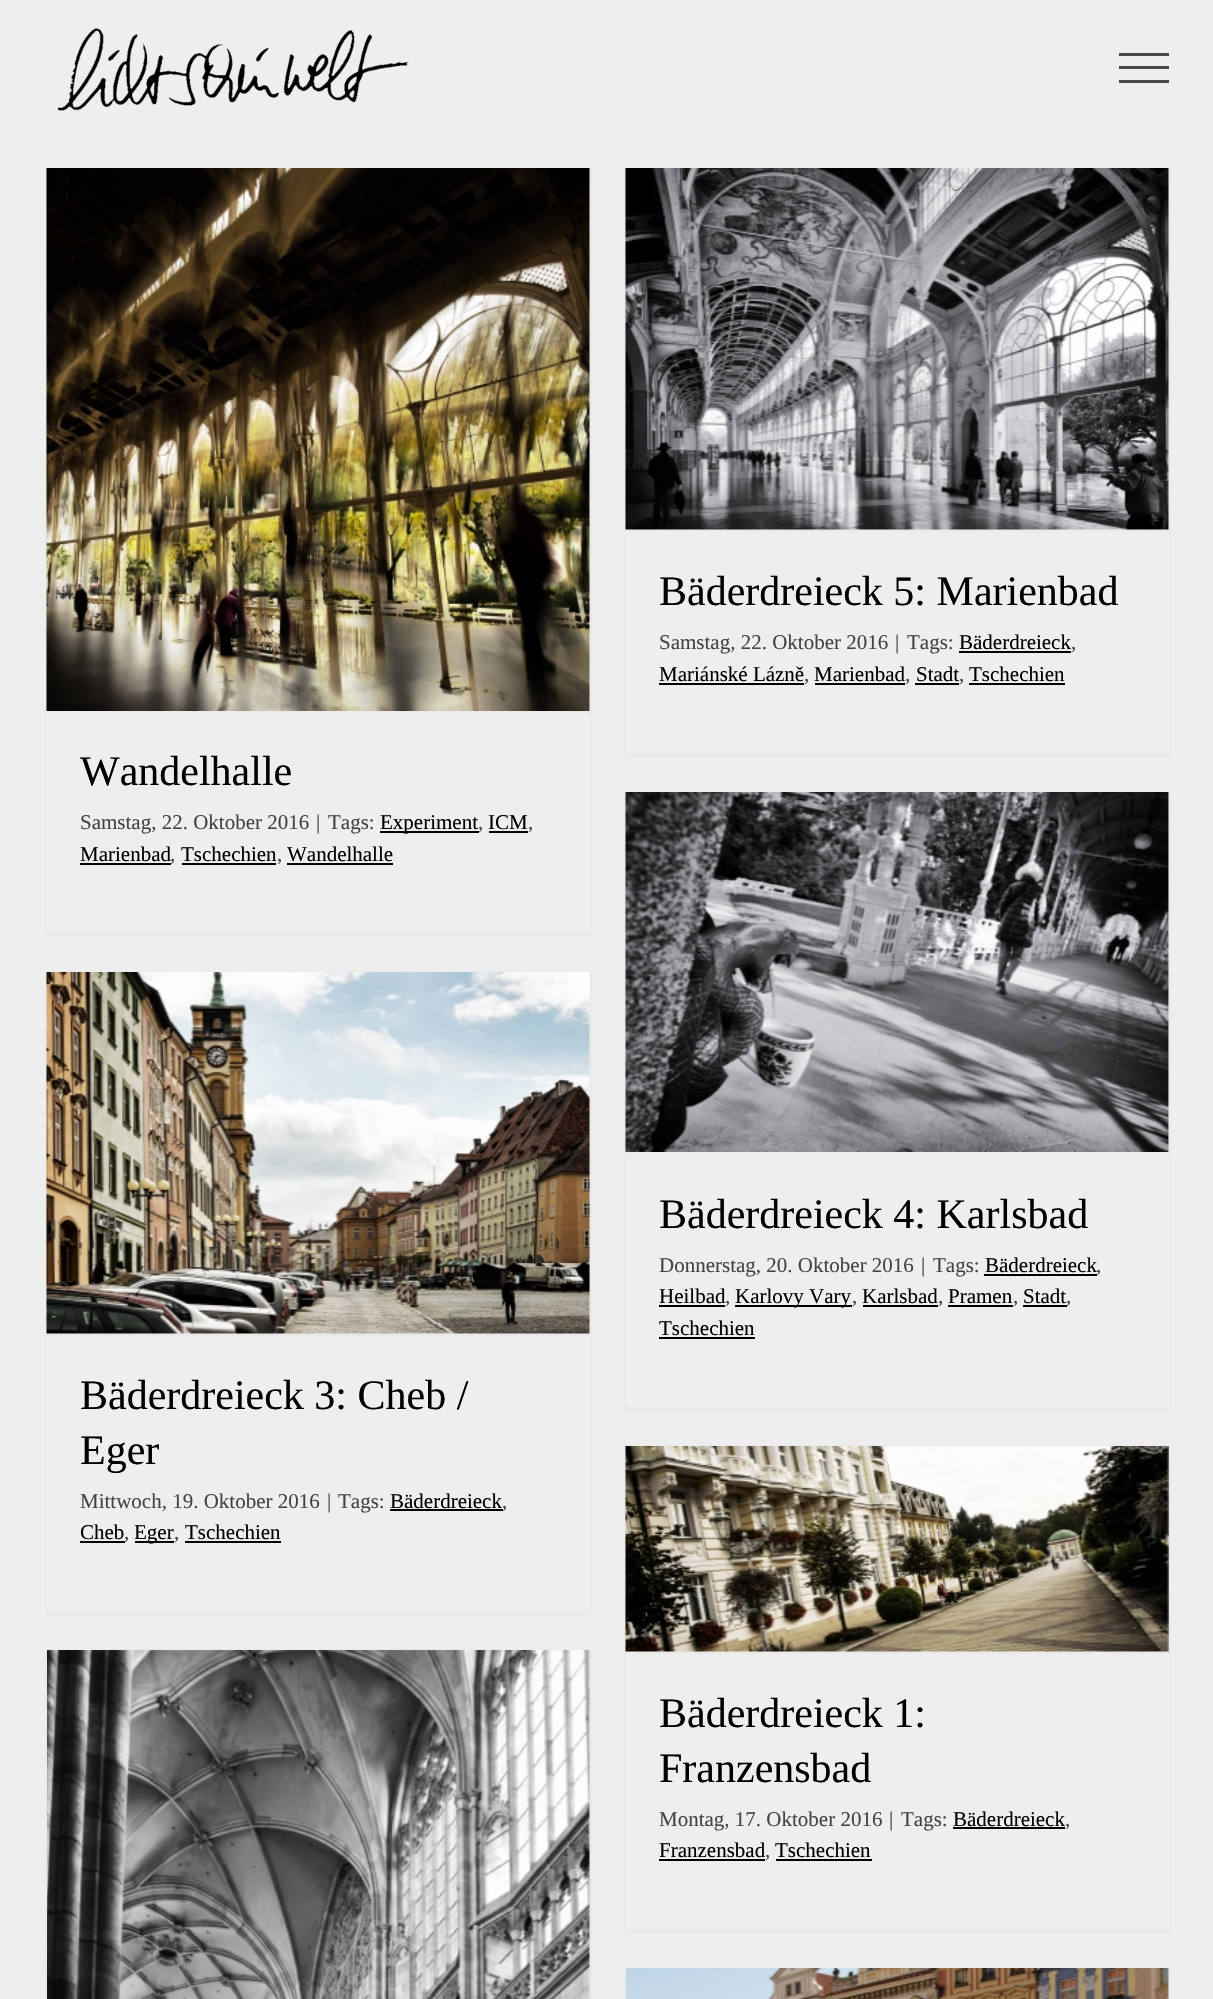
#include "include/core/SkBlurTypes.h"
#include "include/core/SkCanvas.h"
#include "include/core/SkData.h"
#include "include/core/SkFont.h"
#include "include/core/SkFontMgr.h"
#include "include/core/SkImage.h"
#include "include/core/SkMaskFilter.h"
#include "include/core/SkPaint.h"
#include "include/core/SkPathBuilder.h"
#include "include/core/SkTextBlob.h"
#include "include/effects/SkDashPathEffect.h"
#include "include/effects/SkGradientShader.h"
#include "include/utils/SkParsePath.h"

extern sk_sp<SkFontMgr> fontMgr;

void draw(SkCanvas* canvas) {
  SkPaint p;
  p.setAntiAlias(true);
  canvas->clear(SkColorSetRGB(238, 238, 238));
  canvas->drawImageRect(SkImages::DeferredFromEncodedData(SkData::MakeFromFileName("images/1.png")), SkRect::MakeLTRB(57, 27, 410, 111), SkSamplingOptions());
  p.setColor(SkColorSetRGB(73, 73, 73));
  canvas->drawRect(SkRect::MakeLTRB(1119, 53, 1169, 56), p);
  canvas->drawRect(SkRect::MakeLTRB(1119, 66, 1169, 69), p);
  canvas->drawRect(SkRect::MakeLTRB(1119, 80, 1169, 83), p);
  p.setColor(SkColorSetRGB(235, 234, 234));
  canvas->drawRect(SkRect::MakeLTRB(624, 167, 1170, 169), p);
  canvas->drawRect(SkRect::MakeLTRB(1169, 167, 1171, 758), p);
  canvas->drawRect(SkRect::MakeLTRB(624, 753, 1170, 758), p);
  canvas->drawRect(SkRect::MakeLTRB(624, 167, 626, 758), p);
  canvas->drawRect(SkRect::MakeLTRB(626, 530, 1169, 532), p);
  canvas->drawImageRect(SkImages::DeferredFromEncodedData(SkData::MakeFromFileName("images/2.png")), SkRect::MakeLTRB(625, 168, 1169, 530), SkSamplingOptions());
  p.setColor(SK_ColorBLACK);
  canvas->drawRect(SkRect::MakeLTRB(959, 651, 1071, 653), p);
  canvas->drawRect(SkRect::MakeLTRB(659, 683, 804, 685), p);
  canvas->drawRect(SkRect::MakeLTRB(815, 683, 905, 685), p);
  canvas->drawRect(SkRect::MakeLTRB(915, 683, 959, 685), p);
  canvas->drawRect(SkRect::MakeLTRB(969, 683, 1065, 685), p);
  p.setColor(SkColorSetRGB(235, 234, 234));
  canvas->drawRect(SkRect::MakeLTRB(45, 167, 591, 169), p);
  canvas->drawRect(SkRect::MakeLTRB(590, 167, 592, 938), p);
  canvas->drawRect(SkRect::MakeLTRB(45, 933, 591, 938), p);
  canvas->drawRect(SkRect::MakeLTRB(45, 167, 47, 938), p);
  canvas->drawRect(SkRect::MakeLTRB(47, 711, 590, 713), p);
  canvas->drawImageRect(SkImages::DeferredFromEncodedData(SkData::MakeFromFileName("images/3.png")), SkRect::MakeLTRB(46, 168, 590, 711), SkSamplingOptions());
  p.setColor(SK_ColorBLACK);
  canvas->drawRect(SkRect::MakeLTRB(380, 831, 479, 833), p);
  canvas->drawRect(SkRect::MakeLTRB(489, 831, 528, 833), p);
  canvas->drawRect(SkRect::MakeLTRB(80, 863, 171, 865), p);
  canvas->drawRect(SkRect::MakeLTRB(182, 863, 276, 865), p);
  canvas->drawRect(SkRect::MakeLTRB(287, 863, 393, 865), p);
  p.setColor(SkColorSetRGB(235, 234, 234));
  canvas->drawRect(SkRect::MakeLTRB(624, 791, 1170, 793), p);
  canvas->drawRect(SkRect::MakeLTRB(1169, 791, 1171, 1412), p);
  canvas->drawRect(SkRect::MakeLTRB(624, 1407, 1170, 1412), p);
  canvas->drawRect(SkRect::MakeLTRB(624, 791, 626, 1412), p);
  canvas->drawRect(SkRect::MakeLTRB(626, 1152, 1169, 1154), p);
  canvas->drawImageRect(SkImages::DeferredFromEncodedData(SkData::MakeFromFileName("images/4.png")), SkRect::MakeLTRB(625, 792, 1169, 1152), SkSamplingOptions());
  p.setColor(SK_ColorBLACK);
  canvas->drawRect(SkRect::MakeLTRB(984, 1274, 1097, 1276), p);
  canvas->drawRect(SkRect::MakeLTRB(659, 1305, 725, 1307), p);
  canvas->drawRect(SkRect::MakeLTRB(735, 1305, 852, 1307), p);
  canvas->drawRect(SkRect::MakeLTRB(863, 1305, 938, 1307), p);
  canvas->drawRect(SkRect::MakeLTRB(948, 1305, 1013, 1307), p);
  canvas->drawRect(SkRect::MakeLTRB(1023, 1305, 1067, 1307), p);
  canvas->drawRect(SkRect::MakeLTRB(659, 1337, 755, 1339), p);
  p.setColor(SkColorSetRGB(235, 234, 234));
  canvas->drawRect(SkRect::MakeLTRB(45, 971, 591, 973), p);
  canvas->drawRect(SkRect::MakeLTRB(590, 971, 592, 1616), p);
  canvas->drawRect(SkRect::MakeLTRB(45, 1611, 591, 1616), p);
  canvas->drawRect(SkRect::MakeLTRB(45, 971, 47, 1616), p);
  canvas->drawRect(SkRect::MakeLTRB(47, 1334, 590, 1336), p);
  canvas->drawImageRect(SkImages::DeferredFromEncodedData(SkData::MakeFromFileName("images/5.png")), SkRect::MakeLTRB(46, 972, 590, 1334), SkSamplingOptions());
  p.setColor(SK_ColorBLACK);
  canvas->drawRect(SkRect::MakeLTRB(390, 1509, 503, 1511), p);
  canvas->drawRect(SkRect::MakeLTRB(80, 1541, 125, 1543), p);
  canvas->drawRect(SkRect::MakeLTRB(135, 1541, 174, 1543), p);
  canvas->drawRect(SkRect::MakeLTRB(185, 1541, 281, 1543), p);
  p.setColor(SkColorSetRGB(235, 234, 234));
  canvas->drawRect(SkRect::MakeLTRB(45, 1649, 591, 1651), p);
  canvas->drawRect(SkRect::MakeLTRB(590, 1649, 592, 1999), p);
  canvas->drawRect(SkRect::MakeLTRB(45, 1649, 47, 1999), p);
  canvas->drawImageRect(SkImages::DeferredFromEncodedData(SkData::MakeFromFileName("images/6.png")), SkRect::MakeLTRB(47, 1650, 590, 1999), SkSamplingOptions());
  canvas->drawRect(SkRect::MakeLTRB(624, 1445, 1170, 1447), p);
  canvas->drawRect(SkRect::MakeLTRB(1169, 1445, 1171, 1934), p);
  canvas->drawRect(SkRect::MakeLTRB(624, 1929, 1170, 1934), p);
  canvas->drawRect(SkRect::MakeLTRB(624, 1445, 626, 1934), p);
  canvas->drawRect(SkRect::MakeLTRB(626, 1652, 1169, 1654), p);
  canvas->drawImageRect(SkImages::DeferredFromEncodedData(SkData::MakeFromFileName("images/7.png")), SkRect::MakeLTRB(625, 1446, 1169, 1652), SkSamplingOptions());
  p.setColor(SK_ColorBLACK);
  canvas->drawRect(SkRect::MakeLTRB(953, 1827, 1065, 1829), p);
  canvas->drawRect(SkRect::MakeLTRB(659, 1859, 765, 1861), p);
  canvas->drawRect(SkRect::MakeLTRB(776, 1859, 872, 1861), p);
  p.setColor(SkColorSetRGB(235, 234, 234));
  canvas->drawRect(SkRect::MakeLTRB(624, 1967, 1170, 1969), p);
  canvas->drawRect(SkRect::MakeLTRB(1169, 1967, 1171, 1999), p);
  canvas->drawRect(SkRect::MakeLTRB(624, 1967, 626, 1999), p);
  canvas->drawImageRect(SkImages::DeferredFromEncodedData(SkData::MakeFromFileName("images/8.png")), SkRect::MakeLTRB(626, 1968, 1169, 1999), SkSamplingOptions());
  SkFont font1(fontMgr->matchFamilyStyle("Liberation Serif", SkFontStyle::Normal()), 42);
  font1.setSubpixel(true);
  p.setColor(SK_ColorBLACK);
  canvas->drawString("Bäderdreieck 5: Marienbad", 659, 605, font1, p);
  SkFont font2(fontMgr->matchFamilyStyle("Liberation Serif", SkFontStyle::Normal()), 21);
  font2.setSubpixel(true);
  p.setColor(SkColorSetRGB(68, 68, 68));
  canvas->drawString("Samstag, 22. Oktober 2016", 659, 649, font2, p);
  canvas->drawString("|", 895, 649, font2, p);
  canvas->drawString("Tags:", 907, 649, font2, p);
  p.setColor(SK_ColorBLACK);
  canvas->drawString("Bäderdreieck", 959, 649, font2, p);
  p.setColor(SkColorSetRGB(68, 68, 68));
  canvas->drawString(",", 1071, 649, font2, p);
  p.setColor(SK_ColorBLACK);
  canvas->drawString("Mariánské Lázně", 659, 681, font2, p);
  p.setColor(SkColorSetRGB(68, 68, 68));
  canvas->drawString(",", 804, 681, font2, p);
  p.setColor(SK_ColorBLACK);
  canvas->drawString("Marienbad", 814, 681, font2, p);
  p.setColor(SkColorSetRGB(68, 68, 68));
  canvas->drawString(",", 905, 681, font2, p);
  p.setColor(SK_ColorBLACK);
  canvas->drawString("Stadt", 916, 681, font2, p);
  p.setColor(SkColorSetRGB(68, 68, 68));
  canvas->drawString(",", 959, 681, font2, p);
  p.setColor(SK_ColorBLACK);
  canvas->drawString("Tschechien", 969, 681, font2, p);
  canvas->drawString("Wandelhalle", 80, 785, font1, p);
  p.setColor(SkColorSetRGB(68, 68, 68));
  canvas->drawString("Samstag, 22. Oktober 2016", 80, 829, font2, p);
  canvas->drawString("|", 316, 829, font2, p);
  canvas->drawString("Tags:", 328, 829, font2, p);
  p.setColor(SK_ColorBLACK);
  canvas->drawString("Experiment", 380, 829, font2, p);
  p.setColor(SkColorSetRGB(68, 68, 68));
  canvas->drawString(",", 478, 829, font2, p);
  p.setColor(SK_ColorBLACK);
  canvas->drawString("ICM", 488, 829, font2, p);
  p.setColor(SkColorSetRGB(68, 68, 68));
  canvas->drawString(",", 528, 829, font2, p);
  p.setColor(SK_ColorBLACK);
  canvas->drawString("Marienbad", 80, 861, font2, p);
  p.setColor(SkColorSetRGB(68, 68, 68));
  canvas->drawString(",", 170, 861, font2, p);
  p.setColor(SK_ColorBLACK);
  canvas->drawString("Tschechien", 181, 861, font2, p);
  p.setColor(SkColorSetRGB(68, 68, 68));
  canvas->drawString(",", 277, 861, font2, p);
  p.setColor(SK_ColorBLACK);
  canvas->drawString("Wandelhalle", 287, 861, font2, p);
  canvas->drawString("Bäderdreieck 4: Karlsbad", 659, 1228, font1, p);
  p.setColor(SkColorSetRGB(68, 68, 68));
  canvas->drawString("Donnerstag, 20. Oktober 2016", 659, 1272, font2, p);
  canvas->drawString("|", 921, 1272, font2, p);
  canvas->drawString("Tags:", 933, 1272, font2, p);
  p.setColor(SK_ColorBLACK);
  canvas->drawString("Bäderdreieck", 985, 1272, font2, p);
  p.setColor(SkColorSetRGB(68, 68, 68));
  canvas->drawString(",", 1096, 1272, font2, p);
  p.setColor(SK_ColorBLACK);
  canvas->drawString("Heilbad", 659, 1303, font2, p);
  p.setColor(SkColorSetRGB(68, 68, 68));
  canvas->drawString(",", 725, 1303, font2, p);
  p.setColor(SK_ColorBLACK);
  canvas->drawString("Karlovy Vary", 735, 1303, font2, p);
  p.setColor(SkColorSetRGB(68, 68, 68));
  canvas->drawString(",", 852, 1303, font2, p);
  p.setColor(SK_ColorBLACK);
  canvas->drawString("Karlsbad", 862, 1303, font2, p);
  p.setColor(SkColorSetRGB(68, 68, 68));
  canvas->drawString(",", 938, 1303, font2, p);
  p.setColor(SK_ColorBLACK);
  canvas->drawString("Pramen", 948, 1303, font2, p);
  p.setColor(SkColorSetRGB(68, 68, 68));
  canvas->drawString(",", 1013, 1303, font2, p);
  p.setColor(SK_ColorBLACK);
  canvas->drawString("Stadt", 1023, 1303, font2, p);
  p.setColor(SkColorSetRGB(68, 68, 68));
  canvas->drawString(",", 1066, 1303, font2, p);
  p.setColor(SK_ColorBLACK);
  canvas->drawString("Tschechien", 659, 1335, font2, p);
  canvas->drawString("Bäderdreieck 3: Cheb /", 80, 1409, font1, p);
  canvas->drawString("Eger", 80, 1464, font1, p);
  p.setColor(SkColorSetRGB(68, 68, 68));
  canvas->drawString("Mittwoch, 19. Oktober 2016", 80, 1508, font2, p);
  canvas->drawString("|", 327, 1508, font2, p);
  canvas->drawString("Tags:", 338, 1508, font2, p);
  p.setColor(SK_ColorBLACK);
  canvas->drawString("Bäderdreieck", 390, 1508, font2, p);
  p.setColor(SkColorSetRGB(68, 68, 68));
  canvas->drawString(",", 502, 1508, font2, p);
  p.setColor(SK_ColorBLACK);
  canvas->drawString("Cheb", 80, 1539, font2, p);
  p.setColor(SkColorSetRGB(68, 68, 68));
  canvas->drawString(",", 124, 1539, font2, p);
  p.setColor(SK_ColorBLACK);
  canvas->drawString("Eger", 134, 1539, font2, p);
  p.setColor(SkColorSetRGB(68, 68, 68));
  canvas->drawString(",", 174, 1539, font2, p);
  p.setColor(SK_ColorBLACK);
  canvas->drawString("Tschechien", 185, 1539, font2, p);
  canvas->drawString("Bäderdreieck 1:", 659, 1727, font1, p);
  canvas->drawString("Franzensbad", 659, 1782, font1, p);
  p.setColor(SkColorSetRGB(68, 68, 68));
  canvas->drawString("Montag, 17. Oktober 2016", 659, 1826, font2, p);
  canvas->drawString("|", 889, 1826, font2, p);
  canvas->drawString("Tags:", 901, 1826, font2, p);
  p.setColor(SK_ColorBLACK);
  canvas->drawString("Bäderdreieck", 953, 1826, font2, p);
  p.setColor(SkColorSetRGB(68, 68, 68));
  canvas->drawString(",", 1065, 1826, font2, p);
  p.setColor(SK_ColorBLACK);
  canvas->drawString("Franzensbad", 659, 1857, font2, p);
  p.setColor(SkColorSetRGB(68, 68, 68));
  canvas->drawString(",", 765, 1857, font2, p);
  p.setColor(SK_ColorBLACK);
  canvas->drawString("Tschechien", 775, 1857, font2, p);
}
